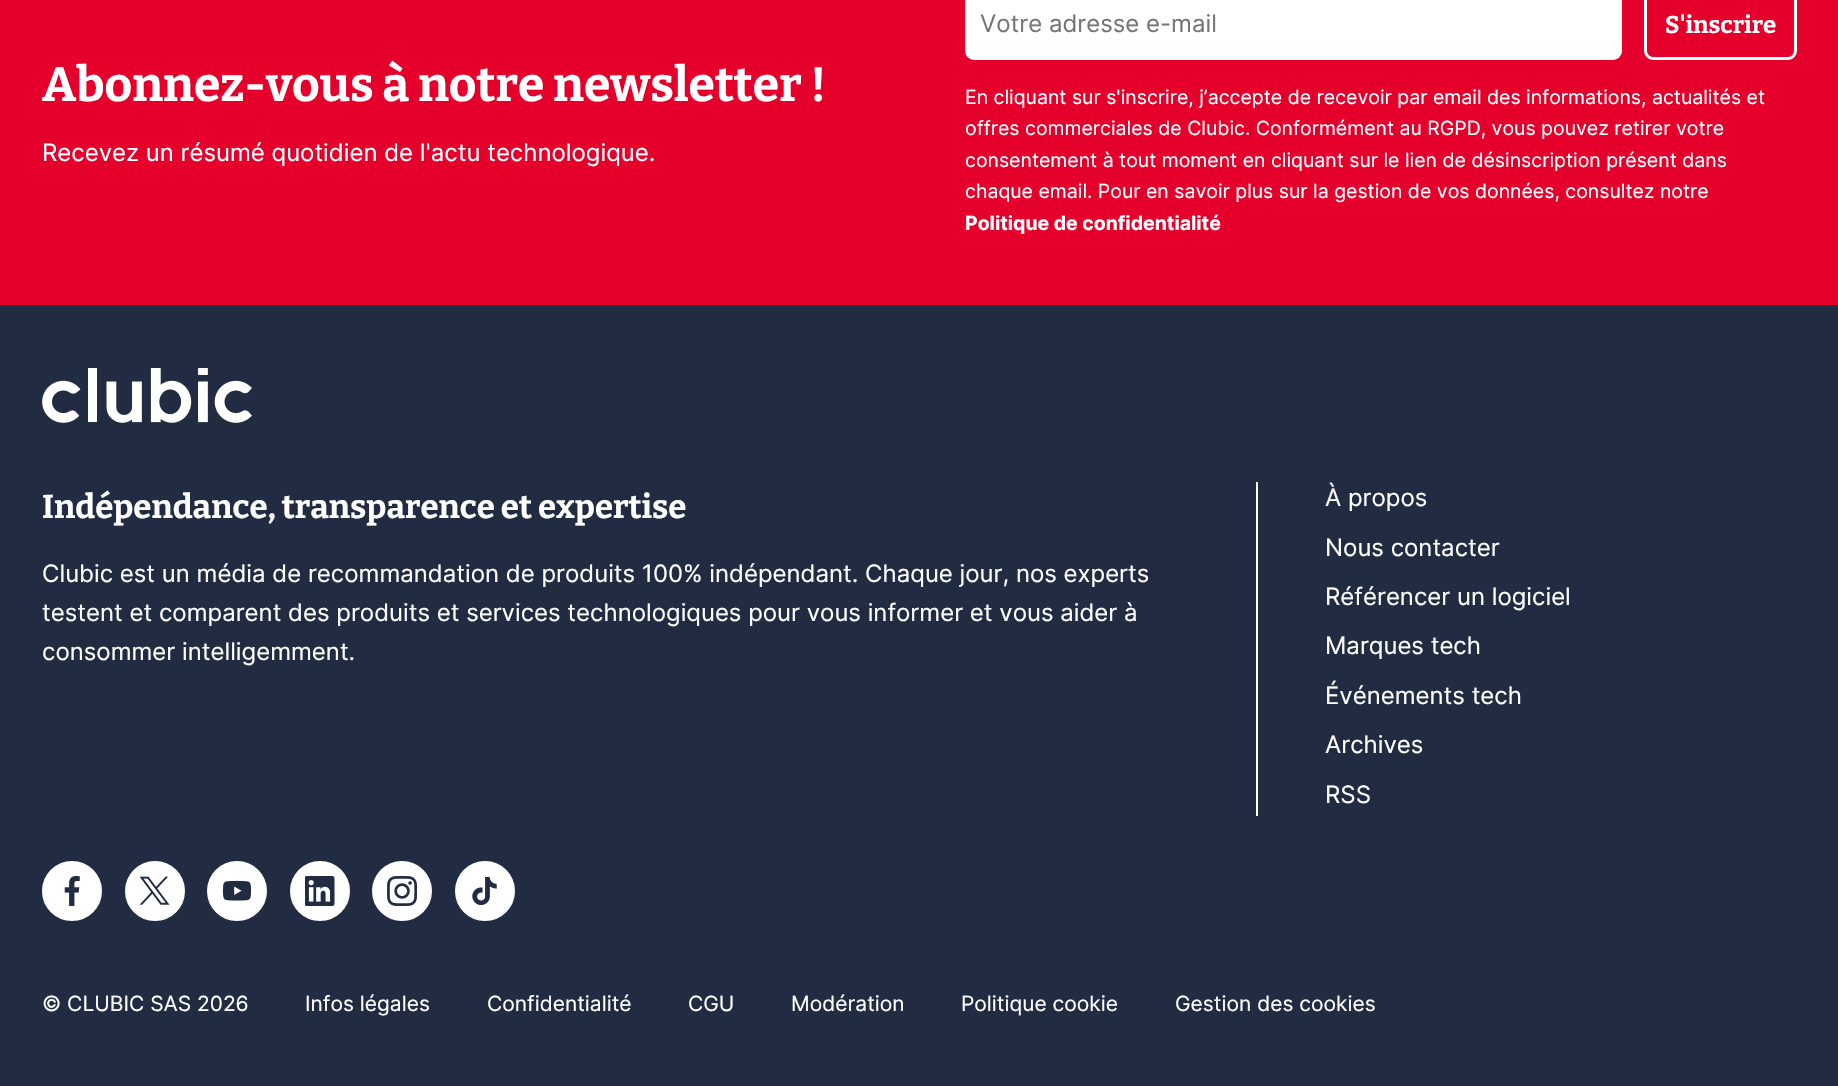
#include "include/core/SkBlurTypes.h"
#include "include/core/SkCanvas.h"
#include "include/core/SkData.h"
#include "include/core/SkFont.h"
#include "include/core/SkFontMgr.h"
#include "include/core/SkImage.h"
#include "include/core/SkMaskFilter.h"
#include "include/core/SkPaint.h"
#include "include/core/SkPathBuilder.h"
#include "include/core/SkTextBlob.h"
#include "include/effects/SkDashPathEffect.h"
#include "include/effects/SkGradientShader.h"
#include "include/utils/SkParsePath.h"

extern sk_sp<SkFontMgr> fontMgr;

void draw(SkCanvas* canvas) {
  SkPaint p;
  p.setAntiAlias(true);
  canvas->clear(SkColorSetRGB(228, 0, 42));
  p.setColor(SK_ColorWHITE);
  canvas->drawRoundRect(SkRect::MakeLTRB(965, -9, 1622, 60), 9, 9, p);
  p.setStyle(SkPaint::kStroke_Style);
  p.setStrokeWidth(3);
  canvas->drawRoundRect(SkRect::MakeLTRB(1645.5f, -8.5f, 1795.5f, 58.5f), 7.5f, 7.5f, p);
  p.setStyle(SkPaint::kFill_Style);
  p.setColor(SkColorSetRGB(33, 44, 66));
  canvas->drawRect(SkRect::MakeLTRB(0, 305, 1838, 1086), p);
  canvas->drawImageRect(SkImages::DeferredFromEncodedData(SkData::MakeFromFileName("images/1.png")), SkRect::MakeLTRB(42, 368, 252, 423), SkSamplingOptions());
  p.setColor(SK_ColorWHITE);
  canvas->drawRect(SkRect::MakeLTRB(1256, 482, 1258, 816), p);
  canvas->drawCircle(72, 891, 29, p);
  p.setStyle(SkPaint::kStroke_Style);
  p.setStrokeWidth(2);
  canvas->drawCircle(72, 891, 29, p);
  canvas->drawImageRect(SkImages::DeferredFromEncodedData(SkData::MakeFromFileName("images/2.png")), SkRect::MakeLTRB(64, 876, 80, 906), SkSamplingOptions());
  p.setStyle(SkPaint::kFill_Style);
  canvas->drawCircle(155, 891, 29, p);
  p.setStyle(SkPaint::kStroke_Style);
  canvas->drawCircle(155, 891, 29, p);
  canvas->drawImageRect(SkImages::DeferredFromEncodedData(SkData::MakeFromFileName("images/3.png")), SkRect::MakeLTRB(140, 876, 170, 905), SkSamplingOptions());
  p.setStyle(SkPaint::kFill_Style);
  canvas->drawCircle(237, 891, 29, p);
  p.setStyle(SkPaint::kStroke_Style);
  canvas->drawCircle(237, 891, 29, p);
  canvas->drawImageRect(SkImages::DeferredFromEncodedData(SkData::MakeFromFileName("images/4.png")), SkRect::MakeLTRB(222, 880, 252, 901), SkSamplingOptions());
  p.setStyle(SkPaint::kFill_Style);
  canvas->drawCircle(320, 891, 29, p);
  p.setStyle(SkPaint::kStroke_Style);
  canvas->drawCircle(320, 891, 29, p);
  canvas->drawImageRect(SkImages::DeferredFromEncodedData(SkData::MakeFromFileName("images/5.png")), SkRect::MakeLTRB(305, 876, 335, 906), SkSamplingOptions());
  p.setStyle(SkPaint::kFill_Style);
  canvas->drawCircle(402, 891, 29, p);
  p.setStyle(SkPaint::kStroke_Style);
  canvas->drawCircle(402, 891, 29, p);
  canvas->drawImageRect(SkImages::DeferredFromEncodedData(SkData::MakeFromFileName("images/6.png")), SkRect::MakeLTRB(387, 876, 417, 906), SkSamplingOptions());
  p.setStyle(SkPaint::kFill_Style);
  canvas->drawCircle(485, 891, 29, p);
  p.setStyle(SkPaint::kStroke_Style);
  canvas->drawCircle(485, 891, 29, p);
  canvas->drawImageRect(SkImages::DeferredFromEncodedData(SkData::MakeFromFileName("images/7.png")), SkRect::MakeLTRB(472, 876, 497, 906), SkSamplingOptions());
  SkFont font1(fontMgr->matchFamilyStyle("Bitter", SkFontStyle(100, SkFontStyle::kNormal_Width, SkFontStyle::kUpright_Slant)), 48);
  font1.setSubpixel(true);
  p.setStyle(SkPaint::kFill_Style);
  canvas->drawString("Abonnez-vous à notre newsletter !", 42, 101, font1, p);
  SkFont font2(fontMgr->matchFamilyStyle("Inter", SkFontStyle::Normal()), 24);
  font2.setSubpixel(true);
  canvas->drawString("Recevez un résumé quotidien de l'actu technologique.", 42, 161, font2, p);
  p.setColor(SkColorSetRGB(117, 117, 117));
  canvas->drawString("Votre adresse e-mail", 980, 32, font2, p);
  SkFont font3(fontMgr->matchFamilyStyle("Bitter", SkFontStyle(100, SkFontStyle::kNormal_Width, SkFontStyle::kUpright_Slant)), 24);
  font3.setSubpixel(true);
  p.setColor(SK_ColorWHITE);
  canvas->drawString("S'inscrire", 1665, 33, font3, p);
  SkFont font4(fontMgr->matchFamilyStyle("Inter", SkFontStyle::Normal()), 19.5f);
  font4.setSubpixel(true);
  canvas->drawString("En cliquant sur s'inscrire, j’accepte de recevoir par email des informations, actualités et", 965, 104, font4, p);
  canvas->drawString("offres commerciales de Clubic. Conformément au RGPD, vous pouvez retirer votre", 965, 135, font4, p);
  canvas->drawString("consentement à tout moment en cliquant sur le lien de désinscription présent dans", 965, 167, font4, p);
  canvas->drawString("chaque email. Pour en savoir plus sur la gestion de vos données, consultez notre", 965, 198, font4, p);
  SkFont font5(fontMgr->matchFamilyStyle("Inter", SkFontStyle::Bold()), 19.5f);
  font5.setSubpixel(true);
  canvas->drawString("Politique de confidentialité", 965, 230, font5, p);
  SkFont font6(fontMgr->matchFamilyStyle("Bitter", SkFontStyle(100, SkFontStyle::kNormal_Width, SkFontStyle::kUpright_Slant)), 33);
  font6.setSubpixel(true);
  canvas->drawString("Indépendance, transparence et expertise", 42, 518, font6, p);
  canvas->drawString("Clubic est un média de recommandation de produits 100% indépendant. Chaque jour, nos experts", 42, 582, font2, p);
  canvas->drawString("testent et comparent des produits et services technologiques pour vous informer et vous aider à", 42, 621, font2, p);
  canvas->drawString("consommer intelligemment.", 42, 660, font2, p);
  canvas->drawString("À propos", 1325, 506, font2, p);
  canvas->drawString("Nous contacter", 1325, 556, font2, p);
  canvas->drawString("Référencer un logiciel", 1325, 605, font2, p);
  canvas->drawString("Marques tech", 1325, 654, font2, p);
  canvas->drawString("Événements tech", 1325, 704, font2, p);
  canvas->drawString("Archives", 1325, 753, font2, p);
  canvas->drawString("RSS", 1325, 803, font2, p);
  SkFont font7(fontMgr->matchFamilyStyle("Inter", SkFontStyle::Normal()), 21);
  font7.setSubpixel(true);
  canvas->drawString("© CLUBIC SAS 2026", 42, 1011, font7, p);
  canvas->drawString("Infos légales", 305, 1011, font7, p);
  canvas->drawString("Confidentialité", 487, 1011, font7, p);
  canvas->drawString("CGU", 688, 1011, font7, p);
  canvas->drawString("Modération", 791, 1011, font7, p);
  canvas->drawString("Politique cookie", 961, 1011, font7, p);
  canvas->drawString("Gestion des cookies", 1175, 1011, font7, p);
}
